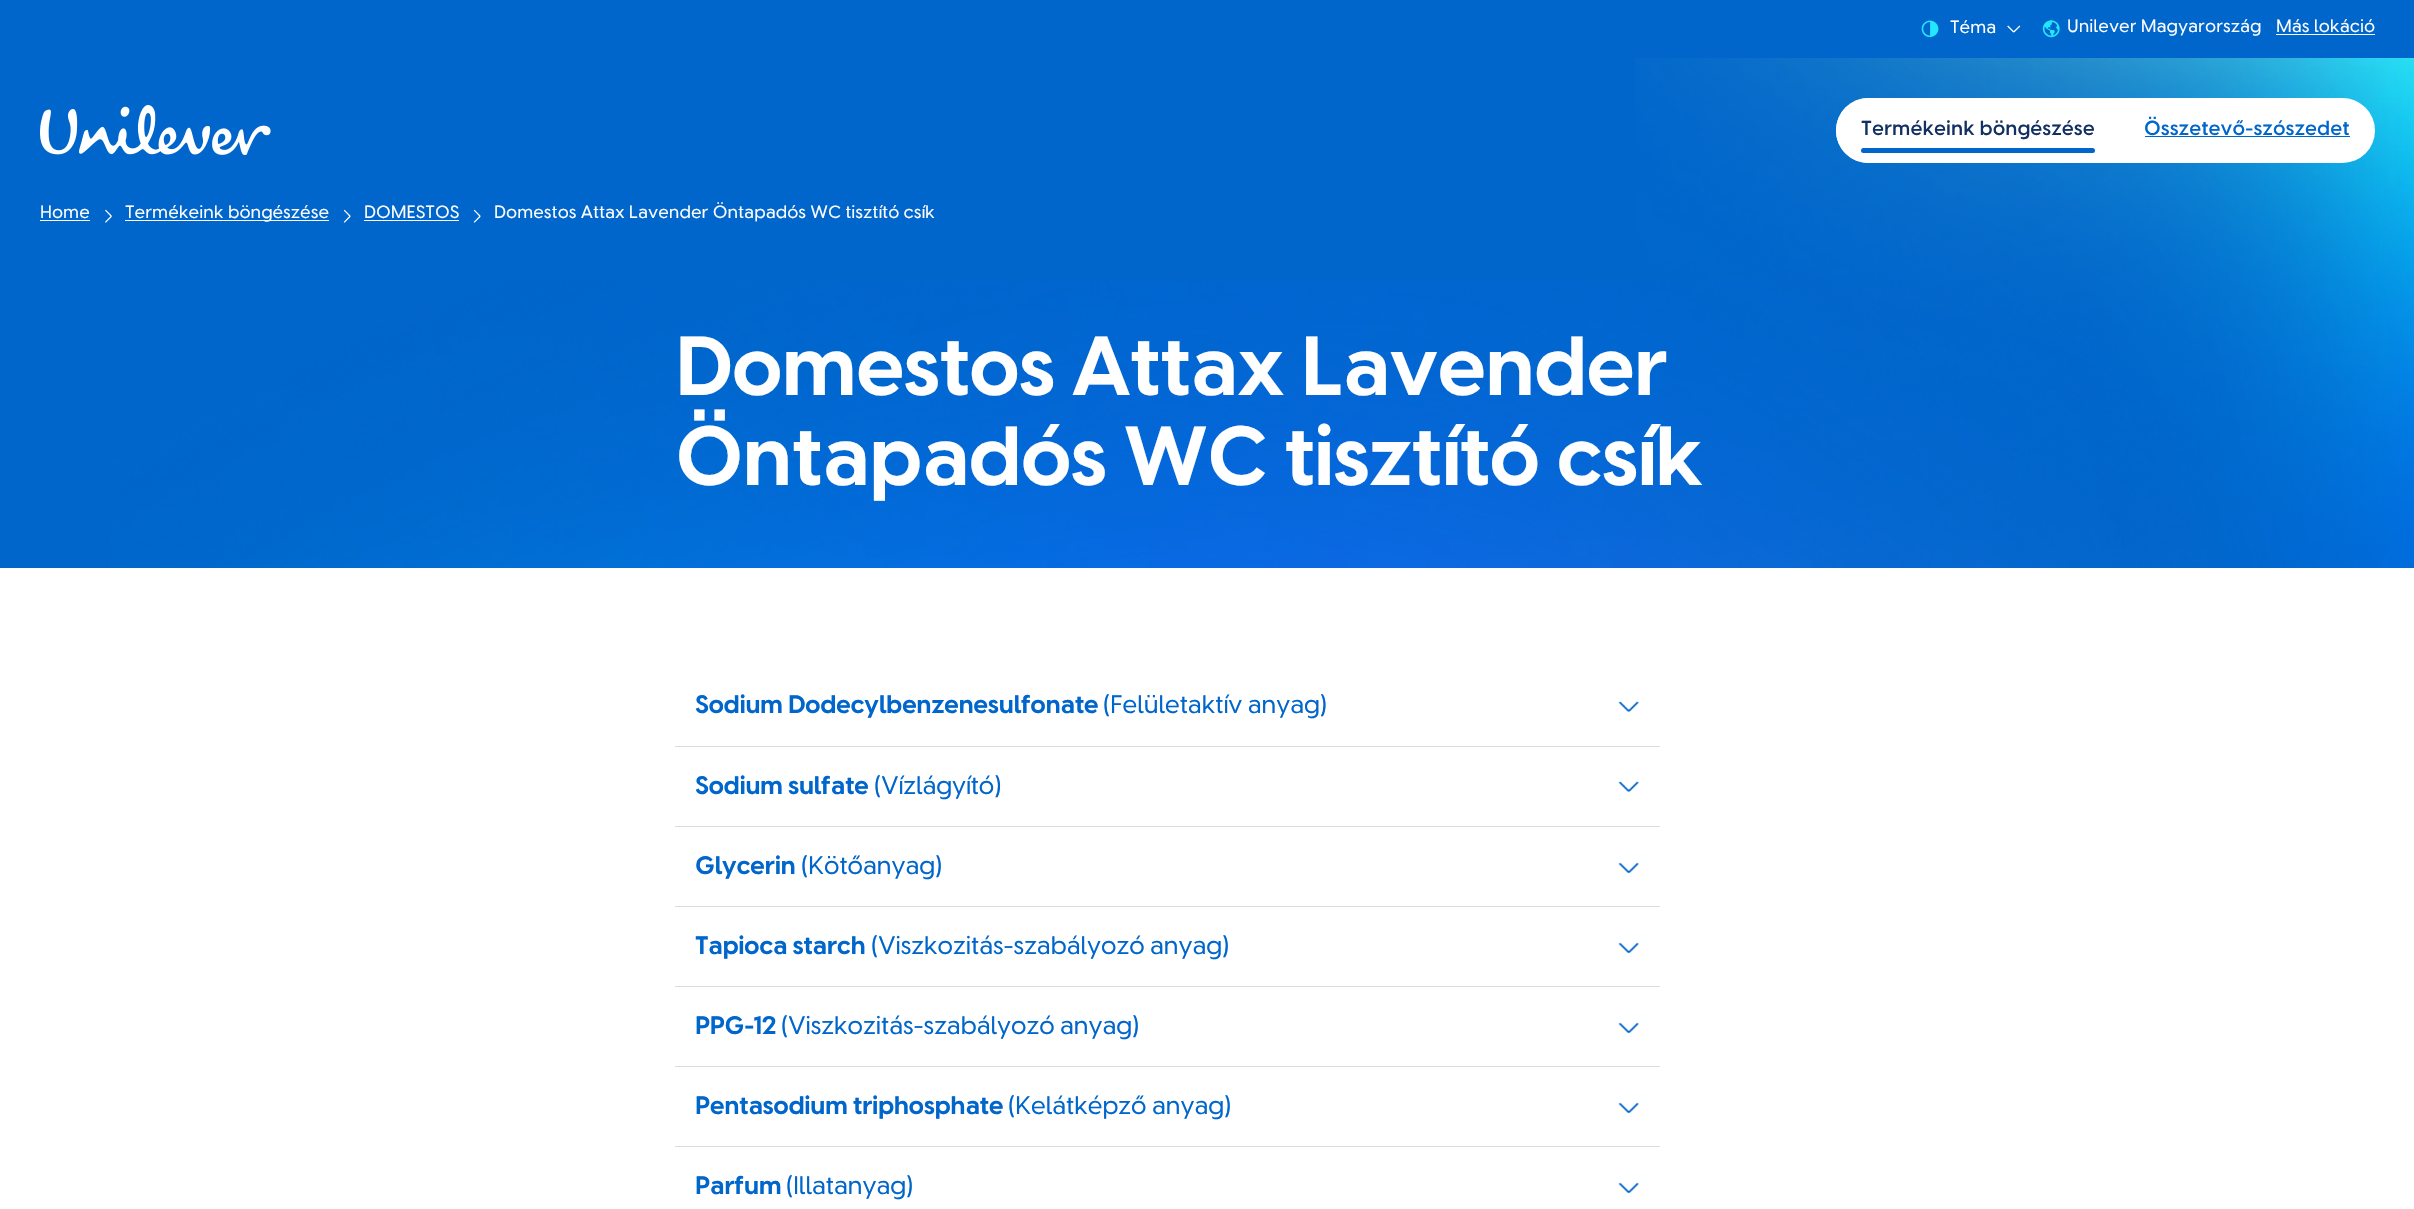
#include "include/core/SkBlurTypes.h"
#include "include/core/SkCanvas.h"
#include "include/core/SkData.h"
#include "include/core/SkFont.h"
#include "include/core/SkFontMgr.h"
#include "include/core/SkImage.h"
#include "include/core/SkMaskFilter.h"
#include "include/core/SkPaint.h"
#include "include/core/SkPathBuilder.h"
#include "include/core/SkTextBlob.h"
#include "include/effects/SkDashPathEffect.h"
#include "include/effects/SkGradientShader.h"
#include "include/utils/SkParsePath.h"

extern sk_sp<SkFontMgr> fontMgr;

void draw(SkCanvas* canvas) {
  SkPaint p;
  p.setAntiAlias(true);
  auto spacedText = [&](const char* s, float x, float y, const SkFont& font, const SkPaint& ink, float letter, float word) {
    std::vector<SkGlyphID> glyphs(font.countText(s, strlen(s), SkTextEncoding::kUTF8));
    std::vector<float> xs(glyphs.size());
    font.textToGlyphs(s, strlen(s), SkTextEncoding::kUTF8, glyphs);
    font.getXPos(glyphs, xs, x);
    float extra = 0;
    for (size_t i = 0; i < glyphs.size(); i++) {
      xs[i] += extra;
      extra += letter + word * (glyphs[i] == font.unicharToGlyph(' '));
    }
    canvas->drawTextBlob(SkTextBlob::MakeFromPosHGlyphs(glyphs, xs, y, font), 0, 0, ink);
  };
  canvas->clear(SkColorSetRGB(0, 102, 204));
  canvas->drawImageRect(SkImages::DeferredFromEncodedData(SkData::MakeFromFileName("images/1.png")), SkRect::MakeLTRB(1921, 20, 1939, 37), SkSamplingOptions());
  canvas->drawImageRect(SkImages::DeferredFromEncodedData(SkData::MakeFromFileName("images/2.png")), SkRect::MakeLTRB(2007, 25, 2021, 33), SkSamplingOptions());
  canvas->drawImageRect(SkImages::DeferredFromEncodedData(SkData::MakeFromFileName("images/3.png")), SkRect::MakeLTRB(2042, 20, 2060, 38), SkSamplingOptions());
  p.setColor(SK_ColorWHITE);
  canvas->drawRect(SkRect::MakeLTRB(2276, 34, 2375, 35), p);
  canvas->drawImageRect(SkImages::DeferredFromEncodedData(SkData::MakeFromFileName("images/4.png")), SkRect::MakeLTRB(40, 105, 271, 155), SkSamplingOptions());
  canvas->drawImageRect(SkImages::DeferredFromEncodedData(SkData::MakeFromFileName("images/9.png")), SkRect::MakeLTRB(1635, 58, 2414, 568), SkSamplingOptions());
  canvas->drawRoundRect(SkRect::MakeLTRB(1836, 98, 2375, 163), 32.5f, 32.5f, p);
  canvas->drawPath(SkPathBuilder().moveTo(1868.5f, 98).lineTo(2120, 98).lineTo(2120, 163).lineTo(1868.5f, 163).cubicTo(1850.5f, 163, 1836, 148.5f, 1836, 130.5f).cubicTo(1836, 112.5f, 1850.5f, 98, 1868.5f, 98).close().detach(), p);
  p.setColor(SkColorSetRGB(0, 102, 204));
  canvas->drawRoundRect(SkRect::MakeLTRB(1861, 148, 2095, 153), 2.5f, 2.5f, p);
  canvas->drawRect(SkRect::MakeLTRB(2145, 136, 2350, 137), p);
  p.setColor(SK_ColorWHITE);
  canvas->drawRect(SkRect::MakeLTRB(40, 220, 90, 221), p);
  canvas->drawImageRect(SkImages::DeferredFromEncodedData(SkData::MakeFromFileName("images/5.png")), SkRect::MakeLTRB(105, 209, 112, 223), SkSamplingOptions());
  canvas->drawRect(SkRect::MakeLTRB(125, 220, 329, 221), p);
  canvas->drawImageRect(SkImages::DeferredFromEncodedData(SkData::MakeFromFileName("images/6.png")), SkRect::MakeLTRB(343, 209, 351, 223), SkSamplingOptions());
  canvas->drawRect(SkRect::MakeLTRB(364, 220, 459, 221), p);
  canvas->drawImageRect(SkImages::DeferredFromEncodedData(SkData::MakeFromFileName("images/6.png")), SkRect::MakeLTRB(473, 209, 481, 223), SkSamplingOptions());
  canvas->drawRect(SkRect::MakeLTRB(0, 568, 2414, 1209), p);
  canvas->drawImageRect(SkImages::DeferredFromEncodedData(SkData::MakeFromFileName("images/7.png")), SkRect::MakeLTRB(1618, 701, 1639, 712), SkSamplingOptions());
  p.setColor(SkColorSetRGB(222, 222, 215));
  canvas->drawRect(SkRect::MakeLTRB(675, 746, 1660, 747), p);
  canvas->drawImageRect(SkImages::DeferredFromEncodedData(SkData::MakeFromFileName("images/7.png")), SkRect::MakeLTRB(1618, 781, 1639, 792), SkSamplingOptions());
  canvas->drawRect(SkRect::MakeLTRB(675, 826, 1660, 827), p);
  canvas->drawImageRect(SkImages::DeferredFromEncodedData(SkData::MakeFromFileName("images/8.png")), SkRect::MakeLTRB(1618, 862, 1639, 873), SkSamplingOptions());
  canvas->drawRect(SkRect::MakeLTRB(675, 906, 1660, 907), p);
  canvas->drawImageRect(SkImages::DeferredFromEncodedData(SkData::MakeFromFileName("images/8.png")), SkRect::MakeLTRB(1618, 942, 1639, 953), SkSamplingOptions());
  canvas->drawRect(SkRect::MakeLTRB(675, 986, 1660, 987), p);
  canvas->drawImageRect(SkImages::DeferredFromEncodedData(SkData::MakeFromFileName("images/8.png")), SkRect::MakeLTRB(1618, 1022, 1639, 1033), SkSamplingOptions());
  canvas->drawRect(SkRect::MakeLTRB(675, 1066, 1660, 1067), p);
  canvas->drawImageRect(SkImages::DeferredFromEncodedData(SkData::MakeFromFileName("images/8.png")), SkRect::MakeLTRB(1618, 1102, 1639, 1113), SkSamplingOptions());
  canvas->drawRect(SkRect::MakeLTRB(675, 1146, 1660, 1147), p);
  canvas->drawImageRect(SkImages::DeferredFromEncodedData(SkData::MakeFromFileName("images/8.png")), SkRect::MakeLTRB(1618, 1182, 1639, 1193), SkSamplingOptions());
  canvas->drawImageRect(SkImages::DeferredFromEncodedData(SkData::MakeFromFileName("images/10.png")), SkRect::MakeLTRB(110, 280, 2213, 568), SkSamplingOptions());
  SkFont font1(fontMgr->matchFamilyStyle("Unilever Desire", SkFontStyle::Normal()), 17.5f);
  font1.setSubpixel(true);
  p.setColor(SK_ColorWHITE);
  canvas->drawString("Téma", 1950, 33, font1, p);
  canvas->drawString("Unilever Magyarország", 2067, 32, font1, p);
  canvas->drawString("Más lokáció", 2276, 32, font1, p);
  SkFont font2(fontMgr->matchFamilyStyle("Unilever Desire", SkFontStyle(600, SkFontStyle::kNormal_Width, SkFontStyle::kUpright_Slant)), 20);
  font2.setSubpixel(true);
  p.setColor(SkColorSetRGB(19, 48, 98));
  canvas->drawString("Termékeink böngészése", 1861, 135, font2, p);
  p.setColor(SkColorSetRGB(0, 102, 204));
  canvas->drawString("Összetevő-szószedet", 2144, 135, font2, p);
  p.setColor(SK_ColorWHITE);
  canvas->drawString("Home", 40, 218, font1, p);
  canvas->drawString("Termékeink böngészése", 125, 218, font1, p);
  canvas->drawString("DOMESTOS", 364, 218, font1, p);
  canvas->drawString("Domestos Attax Lavender Öntapadós WC tisztító csík", 494, 218, font1, p);
  SkFont font3(fontMgr->matchFamilyStyle("Unilever Desire", SkFontStyle::Bold()), 82.5f);
  font3.setSubpixel(true);
  spacedText("Domestos Attax Lavender", 675, 395, font3, p, -1.65f, 0);
  spacedText("Öntapadós WC tisztító csík", 675, 485, font3, p, -1.65f, 0);
  SkFont font4(fontMgr->matchFamilyStyle("Unilever Desire", SkFontStyle::Bold()), 25);
  font4.setSubpixel(true);
  p.setColor(SkColorSetRGB(0, 102, 204));
  spacedText("Sodium Dodecylbenzenesulfonate", 695, 713, font4, p, -0.5f, 0);
  SkFont font5(fontMgr->matchFamilyStyle("Unilever Desire", SkFontStyle::Normal()), 25);
  font5.setSubpixel(true);
  spacedText("(Felületaktív anyag)", 1103, 713, font5, p, -0.5f, 0);
  spacedText("Sodium sulfate", 695, 794, font4, p, -0.5f, 0);
  spacedText("(Vízlágyító)", 874, 794, font5, p, -0.5f, 0);
  spacedText("Glycerin", 695, 874, font4, p, -0.5f, 0);
  spacedText("(Kötőanyag)", 801, 874, font5, p, -0.5f, 0);
  spacedText("Tapioca starch", 695, 954, font4, p, -0.5f, 0);
  spacedText("(Viszkozitás-szabályozó anyag)", 871, 954, font5, p, -0.5f, 0);
  spacedText("PPG-12", 695, 1034, font4, p, -0.5f, 0);
  spacedText("(Viszkozitás-szabályozó anyag)", 781, 1034, font5, p, -0.5f, 0);
  spacedText("Pentasodium triphosphate", 695, 1114, font4, p, -0.5f, 0);
  spacedText("(Kelátképző anyag)", 1008, 1114, font5, p, -0.5f, 0);
  spacedText("Parfum", 695, 1194, font4, p, -0.5f, 0);
  spacedText("(Illatanyag)", 786, 1194, font5, p, -0.5f, 0);
}
